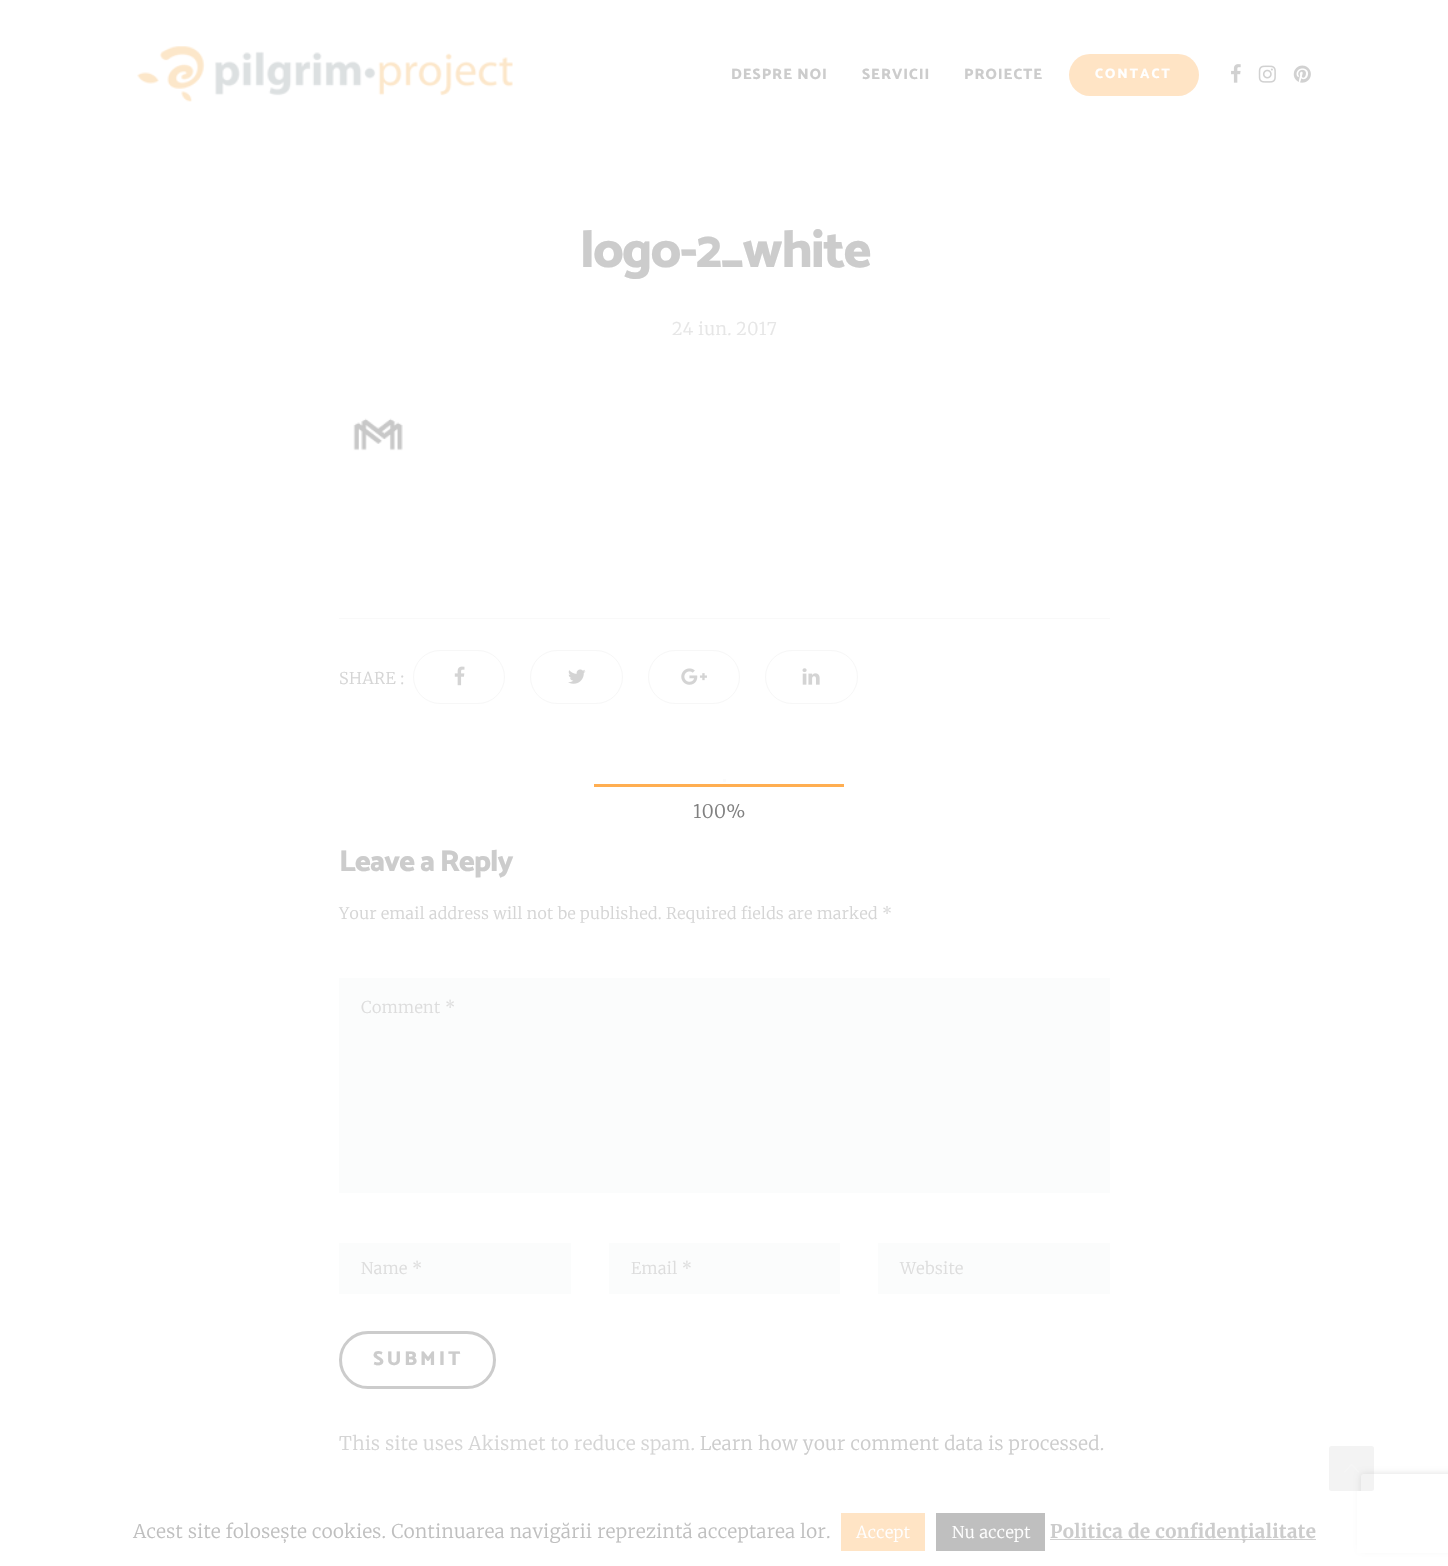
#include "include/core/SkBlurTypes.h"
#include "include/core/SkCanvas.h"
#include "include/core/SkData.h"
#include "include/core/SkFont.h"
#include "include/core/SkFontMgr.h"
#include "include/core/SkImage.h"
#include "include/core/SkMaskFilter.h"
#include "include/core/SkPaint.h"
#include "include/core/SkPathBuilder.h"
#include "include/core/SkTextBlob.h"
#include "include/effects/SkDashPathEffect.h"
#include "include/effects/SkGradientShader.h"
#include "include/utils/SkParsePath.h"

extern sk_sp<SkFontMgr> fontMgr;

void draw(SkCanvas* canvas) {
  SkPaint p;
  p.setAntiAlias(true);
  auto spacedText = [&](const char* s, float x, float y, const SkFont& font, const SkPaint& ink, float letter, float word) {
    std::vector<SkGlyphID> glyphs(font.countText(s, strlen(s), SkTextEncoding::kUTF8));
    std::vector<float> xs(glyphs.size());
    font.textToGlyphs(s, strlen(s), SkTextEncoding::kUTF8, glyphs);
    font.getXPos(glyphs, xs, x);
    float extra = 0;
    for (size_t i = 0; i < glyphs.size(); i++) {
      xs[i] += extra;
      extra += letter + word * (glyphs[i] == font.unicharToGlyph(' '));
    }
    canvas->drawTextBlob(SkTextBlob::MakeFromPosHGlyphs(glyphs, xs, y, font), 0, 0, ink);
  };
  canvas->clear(SK_ColorWHITE);
  canvas->drawImageRect(SkImages::DeferredFromEncodedData(SkData::MakeFromFileName("images/1.png")), SkRect::MakeLTRB(137, 46, 513, 102), SkSamplingOptions());
  p.setColor(SkColorSetRGB(255, 228, 197));
  canvas->drawRoundRect(SkRect::MakeLTRB(1069, 54, 1199, 96), 21, 21, p);
  canvas->drawImageRect(SkImages::DeferredFromEncodedData(SkData::MakeFromFileName("images/2.png")), SkRect::MakeLTRB(1231, 64, 1241, 83), SkSamplingOptions());
  canvas->drawImageRect(SkImages::DeferredFromEncodedData(SkData::MakeFromFileName("images/3.png")), SkRect::MakeLTRB(1258, 65, 1276, 83), SkSamplingOptions());
  canvas->drawImageRect(SkImages::DeferredFromEncodedData(SkData::MakeFromFileName("images/4.png")), SkRect::MakeLTRB(1293, 65, 1311, 83), SkSamplingOptions());
  canvas->drawImageRect(SkImages::DeferredFromEncodedData(SkData::MakeFromFileName("images/5.png")), SkRect::MakeLTRB(353, 418, 403, 451), SkSamplingOptions());
  p.setColor(SkColorSetRGB(249, 249, 249));
  canvas->drawRect(SkRect::MakeLTRB(339, 618, 1110, 619), p);
  p.setStyle(SkPaint::kStroke_Style);
  p.setStrokeWidth(1);
  p.setColor(SkColorSetRGB(247, 247, 247));
  canvas->drawRoundRect(SkRect::MakeLTRB(413.5f, 650.5f, 504.5f, 703.5f), 26.5f, 26.5f, p);
  canvas->drawImageRect(SkImages::DeferredFromEncodedData(SkData::MakeFromFileName("images/6.png")), SkRect::MakeLTRB(454, 666, 465, 686), SkSamplingOptions());
  canvas->drawRoundRect(SkRect::MakeLTRB(530.5f, 650.5f, 622.5f, 703.5f), 26.5f, 26.5f, p);
  canvas->drawImageRect(SkImages::DeferredFromEncodedData(SkData::MakeFromFileName("images/7.png")), SkRect::MakeLTRB(568, 669, 586, 684), SkSamplingOptions());
  canvas->drawRoundRect(SkRect::MakeLTRB(648.5f, 650.5f, 739.5f, 703.5f), 26.5f, 26.5f, p);
  canvas->drawImageRect(SkImages::DeferredFromEncodedData(SkData::MakeFromFileName("images/8.png")), SkRect::MakeLTRB(681, 668, 707, 685), SkSamplingOptions());
  canvas->drawRoundRect(SkRect::MakeLTRB(765.5f, 650.5f, 857.5f, 703.5f), 26.5f, 26.5f, p);
  canvas->drawImageRect(SkImages::DeferredFromEncodedData(SkData::MakeFromFileName("images/9.png")), SkRect::MakeLTRB(802, 668, 820, 685), SkSamplingOptions());
  p.setStyle(SkPaint::kFill_Style);
  p.setColor(SkColorSetRGB(251, 251, 251));
  canvas->drawRect(SkRect::MakeLTRB(723, 779, 726, 782), p);
  p.setColor(SkColorSetRGB(251, 252, 252));
  canvas->drawRect(SkRect::MakeLTRB(339, 978, 1110, 1193), p);
  canvas->drawRect(SkRect::MakeLTRB(339, 1243, 571, 1294), p);
  canvas->drawRect(SkRect::MakeLTRB(609, 1243, 840, 1294), p);
  canvas->drawRect(SkRect::MakeLTRB(878, 1243, 1110, 1294), p);
  p.setStyle(SkPaint::kStroke_Style);
  p.setStrokeWidth(3);
  p.setColor(SkColorSetRGB(204, 204, 204));
  canvas->drawRoundRect(SkRect::MakeLTRB(340.5f, 1332.5f, 494.5f, 1387.5f), 27.5f, 27.5f, p);
  p.setStyle(SkPaint::kFill_Style);
  p.setColor(SkColorSetRGB(255, 174, 81));
  canvas->drawRect(SkRect::MakeLTRB(594, 784, 844, 787), p);
  canvas->save();
  canvas->clipPath(SkPathBuilder(SkPathFillType::kEvenOdd).moveTo(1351, 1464).lineTo(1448, 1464).lineTo(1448, 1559).lineTo(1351, 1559).close().moveTo(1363.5f, 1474).lineTo(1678.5f, 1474).cubicTo(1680, 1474, 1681, 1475, 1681, 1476.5f).lineTo(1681, 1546.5f).cubicTo(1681, 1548, 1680, 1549, 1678.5f, 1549).lineTo(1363.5f, 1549).cubicTo(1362, 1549, 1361, 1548, 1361, 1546.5f).lineTo(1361, 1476.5f).cubicTo(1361, 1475, 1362, 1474, 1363.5f, 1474).close().detach(), true);
  p.setColor(SkColorSetRGB(223, 223, 223));
  p.setMaskFilter(SkMaskFilter::MakeBlur(kNormal_SkBlurStyle, 3));
  canvas->drawRoundRect(SkRect::MakeLTRB(1361, 1474, 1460, 1549), 2.5f, 2.5f, p);
  p.setMaskFilter(nullptr);
  canvas->restore();
  p.setColor(SkColorSetARGB(54, 200, 200, 200));
  canvas->drawRoundRect(SkRect::MakeLTRB(1329, 1446, 1374, 1491), 2.5f, 2.5f, p);
  canvas->drawImageRect(SkImages::DeferredFromEncodedData(SkData::MakeFromFileName("images/10.png")), SkRect::MakeLTRB(1344, 1464, 1359, 1473), SkSamplingOptions());
  p.setColor(SK_ColorWHITE);
  canvas->drawRect(SkRect::MakeLTRB(1357, 1491, 1448, 1553), p);
  p.setColor(SkColorSetRGB(255, 228, 197));
  canvas->drawRect(SkRect::MakeLTRB(841, 1513, 925, 1551), p);
  p.setColor(SkColorSetRGB(191, 191, 191));
  canvas->drawRect(SkRect::MakeLTRB(936, 1513, 1045, 1551), p);
  p.setColor(SkColorSetRGB(208, 208, 208));
  canvas->drawRect(SkRect::MakeLTRB(1050, 1539, 1316, 1540), p);
  SkFont font1(fontMgr->matchFamilyStyle("Catamaran", SkFontStyle(800, SkFontStyle::kNormal_Width, SkFontStyle::kUpright_Slant)), 15);
  font1.setSubpixel(true);
  p.setColor(SkColorSetRGB(204, 204, 204));
  spacedText("DESPRE NOI", 731, 79, font1, p, 1, 0);
  spacedText("SERVICII", 862, 79, font1, p, 1, 0);
  spacedText("PROIECTE", 964, 79, font1, p, 1, 0);
  SkFont font2(fontMgr->matchFamilyStyle("Catamaran", SkFontStyle(800, SkFontStyle::kNormal_Width, SkFontStyle::kUpright_Slant)), 13.75f);
  font2.setSubpixel(true);
  p.setColor(SK_ColorWHITE);
  spacedText("CONTACT", 1095, 78, font2, p, 2, 0);
  SkFont font3(fontMgr->matchFamilyStyle("Catamaran", SkFontStyle(800, SkFontStyle::kNormal_Width, SkFontStyle::kUpright_Slant)), 52.5f);
  font3.setSubpixel(true);
  p.setColor(SkColorSetRGB(204, 204, 204));
  spacedText("logo-2_white", 580, 267, font3, p, -1.5f, 0);
  SkFont font4(fontMgr->matchFamilyStyle("Merriweather", SkFontStyle(300, SkFontStyle::kNormal_Width, SkFontStyle::kUpright_Slant)), 17.5f);
  font4.setSubpixel(true);
  p.setColor(SkColorSetRGB(230, 230, 230));
  spacedText("24 iun. 2017", 672, 335, font4, p, 0.38f, 0);
  SkFont font5(fontMgr->matchFamilyStyle("Merriweather", SkFontStyle(300, SkFontStyle::kNormal_Width, SkFontStyle::kUpright_Slant)), 16.25f);
  font5.setSubpixel(true);
  p.setColor(SkColorSetRGB(213, 213, 213));
  spacedText("SHARE :", 339, 684, font5, p, 0.38f, 0);
  SkFont font6(fontMgr->matchFamilyStyle("Catamaran", SkFontStyle(800, SkFontStyle::kNormal_Width, SkFontStyle::kUpright_Slant)), 30);
  font6.setSubpixel(true);
  p.setColor(SkColorSetRGB(204, 204, 204));
  spacedText("Leave a Reply", 339, 871, font6, p, -0.9f, 0);
  SkFont font7(fontMgr->matchFamilyStyle("Merriweather", SkFontStyle(300, SkFontStyle::kNormal_Width, SkFontStyle::kUpright_Slant)), 15.95f);
  font7.setSubpixel(true);
  p.setColor(SkColorSetRGB(213, 213, 213));
  spacedText("Your email address will not be published. Required fields are marked *", 339, 919, font7, p, 0.38f, 0);
  p.setColor(SkColorSetRGB(221, 221, 221));
  spacedText("Comment *", 361, 1013, font5, p, 0.38f, 0);
  spacedText("Name *", 361, 1274, font5, p, 0.38f, 0);
  spacedText("Email *", 631, 1274, font5, p, 0.38f, 0);
  spacedText("Website", 900, 1274, font5, p, 0.38f, 0);
  SkFont font8(fontMgr->matchFamilyStyle("Catamaran", SkFontStyle(800, SkFontStyle::kNormal_Width, SkFontStyle::kUpright_Slant)), 20);
  font8.setSubpixel(true);
  p.setColor(SkColorSetRGB(204, 204, 204));
  spacedText("SUBMIT", 373, 1365, font8, p, 3, 0);
  SkFont font9(fontMgr->matchFamilyStyle("Merriweather", SkFontStyle(300, SkFontStyle::kNormal_Width, SkFontStyle::kUpright_Slant)), 18.75f);
  font9.setSubpixel(true);
  p.setColor(SkColorSetRGB(213, 213, 213));
  spacedText("This site uses Akismet to reduce spam.", 339, 1450, font9, p, 0.38f, 0);
  p.setColor(SkColorSetRGB(204, 204, 204));
  spacedText("Learn how your comment data is processed.", 700, 1450, font9, p, 0.38f, 0);
  p.setColor(SkColorSetRGB(128, 128, 128));
  spacedText("100%", 693, 818, font9, p, 0.38f, 0);
  p.setColor(SkColorSetRGB(191, 191, 191));
  spacedText("Acest site folosește cookies. Continuarea navigării reprezintă acceptarea lor.", 133, 1538, font9, p, 0.38f, 0);
  p.setColor(SK_ColorWHITE);
  spacedText("Accept", 856, 1538, font5, p, 0.38f, 0);
  spacedText("Nu accept", 952, 1538, font5, p, 0.38f, 0);
  SkFont font10(fontMgr->matchFamilyStyle("Merriweather", SkFontStyle::Bold()), 18.75f);
  font10.setSubpixel(true);
  p.setColor(SkColorSetRGB(204, 204, 204));
  spacedText("Politica de confidențialitate", 1050, 1538, font10, p, 0.38f, 0);
}
